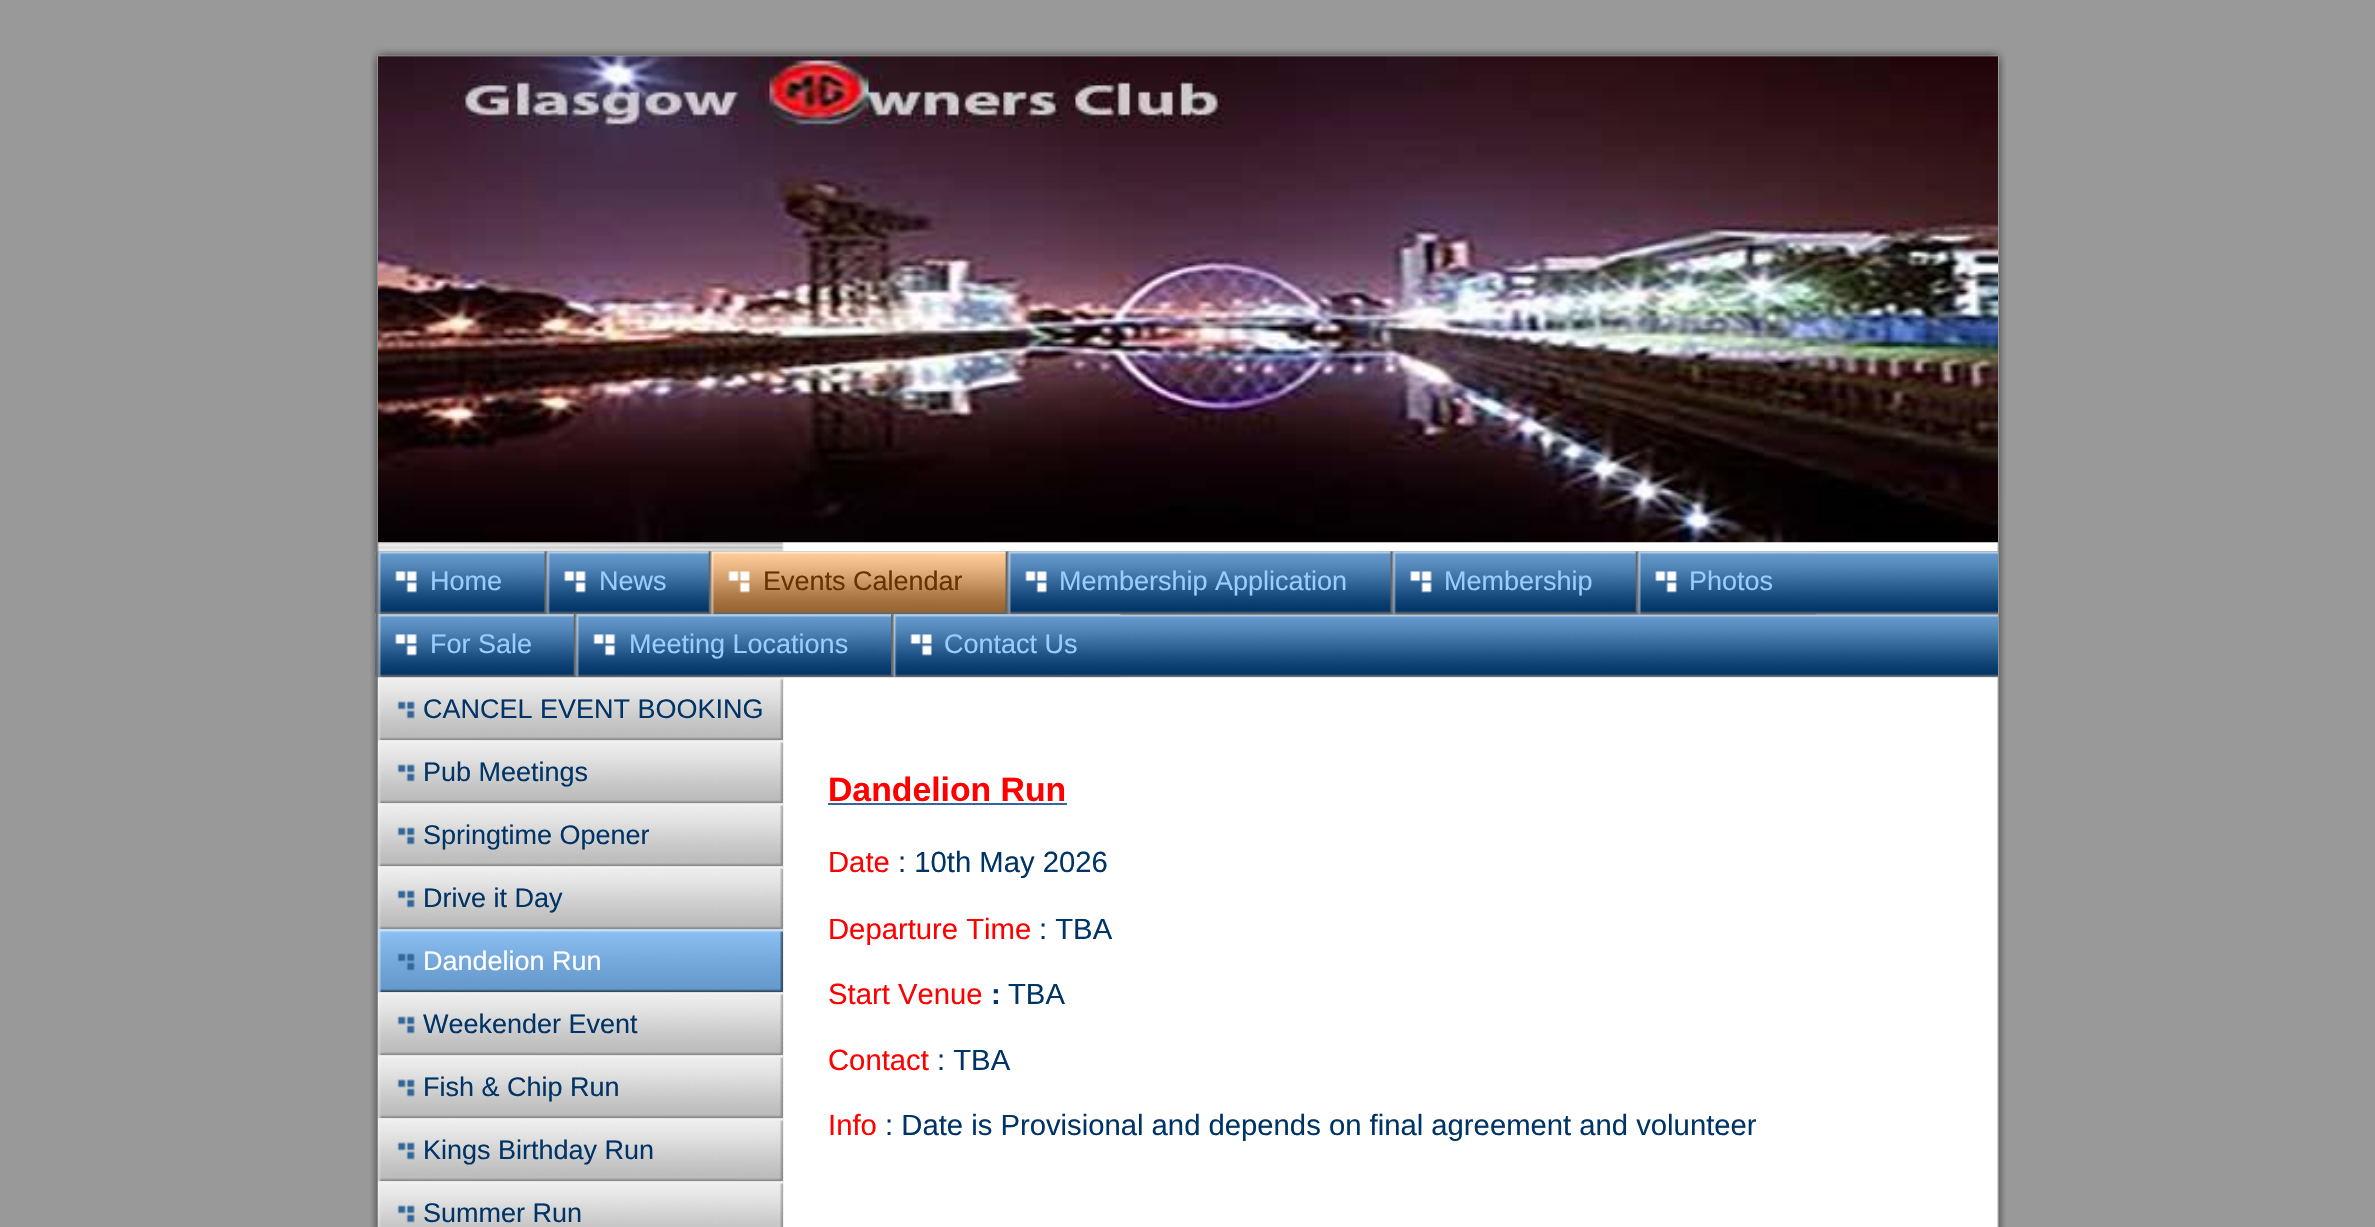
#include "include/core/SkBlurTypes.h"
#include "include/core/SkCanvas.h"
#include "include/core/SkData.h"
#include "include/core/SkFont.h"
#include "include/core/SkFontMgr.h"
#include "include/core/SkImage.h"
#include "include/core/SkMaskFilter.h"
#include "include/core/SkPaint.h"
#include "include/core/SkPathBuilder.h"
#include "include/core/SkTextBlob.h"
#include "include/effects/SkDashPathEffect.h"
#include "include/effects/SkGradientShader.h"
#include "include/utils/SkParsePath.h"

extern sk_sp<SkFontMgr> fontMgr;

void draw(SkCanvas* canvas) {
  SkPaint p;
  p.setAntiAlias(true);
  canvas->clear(SkColorSetRGB(153, 153, 153));
  canvas->drawImageRect(SkImages::DeferredFromEncodedData(SkData::MakeFromFileName("images/1.png")), SkRect::MakeLTRB(370, 495, 2006, 1227), SkSamplingOptions());
  canvas->drawImageRect(SkImages::DeferredFromEncodedData(SkData::MakeFromFileName("images/2.png")), SkRect::MakeLTRB(370, 0, 2006, 495), SkSamplingOptions());
  canvas->drawImageRect(SkImages::DeferredFromEncodedData(SkData::MakeFromFileName("images/3.png")), SkRect::MakeLTRB(378, 56, 1998, 543), SkSamplingOptions());
  canvas->drawImageRect(SkImages::DeferredFromEncodedData(SkData::MakeFromFileName("images/14.png")), SkRect::MakeLTRB(378, 677, 783, 741), SkSamplingOptions());
  canvas->drawImageRect(SkImages::DeferredFromEncodedData(SkData::MakeFromFileName("images/4.png")), SkRect::MakeLTRB(375, 551, 1998, 678), SkSamplingOptions());
  canvas->drawImageRect(SkImages::DeferredFromEncodedData(SkData::MakeFromFileName("images/5.png")), SkRect::MakeLTRB(376, 551, 545, 615), SkSamplingOptions());
  canvas->drawImageRect(SkImages::DeferredFromEncodedData(SkData::MakeFromFileName("images/6.png")), SkRect::MakeLTRB(544, 551, 709, 615), SkSamplingOptions());
  canvas->drawImageRect(SkImages::DeferredFromEncodedData(SkData::MakeFromFileName("images/7.png")), SkRect::MakeLTRB(708, 551, 1006, 615), SkSamplingOptions());
  canvas->drawImageRect(SkImages::DeferredFromEncodedData(SkData::MakeFromFileName("images/8.png")), SkRect::MakeLTRB(1005, 551, 1391, 615), SkSamplingOptions());
  canvas->drawImageRect(SkImages::DeferredFromEncodedData(SkData::MakeFromFileName("images/9.png")), SkRect::MakeLTRB(1390, 551, 1636, 615), SkSamplingOptions());
  canvas->drawImageRect(SkImages::DeferredFromEncodedData(SkData::MakeFromFileName("images/10.png")), SkRect::MakeLTRB(1635, 551, 1816, 615), SkSamplingOptions());
  canvas->drawImageRect(SkImages::DeferredFromEncodedData(SkData::MakeFromFileName("images/11.png")), SkRect::MakeLTRB(376, 614, 574, 678), SkSamplingOptions());
  canvas->drawImageRect(SkImages::DeferredFromEncodedData(SkData::MakeFromFileName("images/12.png")), SkRect::MakeLTRB(573, 614, 891, 678), SkSamplingOptions());
  canvas->drawImageRect(SkImages::DeferredFromEncodedData(SkData::MakeFromFileName("images/13.png")), SkRect::MakeLTRB(891, 614, 1121, 678), SkSamplingOptions());
  canvas->drawImageRect(SkImages::DeferredFromEncodedData(SkData::MakeFromFileName("images/15.png")), SkRect::MakeLTRB(378, 740, 783, 804), SkSamplingOptions());
  canvas->drawImageRect(SkImages::DeferredFromEncodedData(SkData::MakeFromFileName("images/16.png")), SkRect::MakeLTRB(378, 803, 783, 867), SkSamplingOptions());
  canvas->drawImageRect(SkImages::DeferredFromEncodedData(SkData::MakeFromFileName("images/17.png")), SkRect::MakeLTRB(378, 866, 783, 930), SkSamplingOptions());
  canvas->drawImageRect(SkImages::DeferredFromEncodedData(SkData::MakeFromFileName("images/18.png")), SkRect::MakeLTRB(378, 929, 783, 993), SkSamplingOptions());
  canvas->drawImageRect(SkImages::DeferredFromEncodedData(SkData::MakeFromFileName("images/19.png")), SkRect::MakeLTRB(378, 992, 783, 1056), SkSamplingOptions());
  canvas->drawImageRect(SkImages::DeferredFromEncodedData(SkData::MakeFromFileName("images/15.png")), SkRect::MakeLTRB(378, 1055, 783, 1119), SkSamplingOptions());
  canvas->drawImageRect(SkImages::DeferredFromEncodedData(SkData::MakeFromFileName("images/20.png")), SkRect::MakeLTRB(378, 1118, 783, 1182), SkSamplingOptions());
  canvas->drawImageRect(SkImages::DeferredFromEncodedData(SkData::MakeFromFileName("images/21.png")), SkRect::MakeLTRB(378, 1181, 783, 1227), SkSamplingOptions());
  p.setColor(SkColorSetRGB(51, 102, 153));
  canvas->drawRect(SkRect::MakeLTRB(828, 803, 1067, 805), p);
  SkFont font1(fontMgr->matchFamilyStyle("Liberation Sans", SkFontStyle::Normal()), 27);
  font1.setSubpixel(true);
  p.setColor(SkColorSetRGB(153, 204, 255));
  canvas->drawString("Home", 430, 590, font1, p);
  canvas->drawString("News", 599, 590, font1, p);
  p.setColor(SkColorSetRGB(102, 51, 0));
  canvas->drawString("Events Calendar", 763, 590, font1, p);
  p.setColor(SkColorSetRGB(153, 204, 255));
  canvas->drawString("Membership Application", 1059, 590, font1, p);
  canvas->drawString("Membership", 1444, 590, font1, p);
  canvas->drawString("Photos", 1689, 590, font1, p);
  canvas->drawString("For Sale", 430, 653, font1, p);
  canvas->drawString("Meeting Locations", 629, 653, font1, p);
  canvas->drawString("Contact Us", 944, 653, font1, p);
  p.setColor(SkColorSetRGB(0, 51, 102));
  canvas->drawString("CANCEL EVENT BOOKING", 423, 718, font1, p);
  canvas->drawString("Pub Meetings", 423, 781, font1, p);
  canvas->drawString("Springtime Opener", 423, 844, font1, p);
  canvas->drawString("Drive it Day", 423, 907, font1, p);
  p.setColor(SK_ColorWHITE);
  canvas->drawString("Dandelion Run", 423, 970, font1, p);
  p.setColor(SkColorSetRGB(0, 51, 102));
  canvas->drawString("Weekender Event", 423, 1033, font1, p);
  canvas->drawString("Fish & Chip Run", 423, 1096, font1, p);
  canvas->drawString("Kings Birthday Run", 423, 1159, font1, p);
  canvas->drawString("Summer Run", 423, 1222, font1, p);
  SkFont font2(fontMgr->matchFamilyStyle("Liberation Sans", SkFontStyle::Bold()), 33.75f);
  font2.setSubpixel(true);
  p.setColor(SkColorSetRGB(255, 0, 0));
  canvas->drawString("Dandelion Run", 828, 801, font2, p);
  SkFont font3(fontMgr->matchFamilyStyle("Liberation Sans", SkFontStyle::Normal()), 29.25f);
  font3.setSubpixel(true);
  canvas->drawString("Date", 828, 872, font3, p);
  p.setColor(SkColorSetRGB(0, 51, 102));
  canvas->drawString(": 10th May 2026", 898, 872, font3, p);
  p.setColor(SkColorSetRGB(255, 0, 0));
  canvas->drawString("Departure Time", 828, 939, font3, p);
  p.setColor(SkColorSetRGB(0, 51, 102));
  canvas->drawString(": TBA", 1039, 939, font3, p);
  p.setColor(SkColorSetRGB(255, 0, 0));
  canvas->drawString("Start Venue", 828, 1004, font3, p);
  SkFont font4(fontMgr->matchFamilyStyle("Liberation Sans", SkFontStyle::Bold()), 29.25f);
  font4.setSubpixel(true);
  p.setColor(SkColorSetRGB(0, 51, 102));
  canvas->drawString(":", 991, 1004, font4, p);
  canvas->drawString("TBA", 1008, 1004, font3, p);
  p.setColor(SkColorSetRGB(255, 0, 0));
  canvas->drawString("Contact", 828, 1070, font3, p);
  p.setColor(SkColorSetRGB(0, 51, 102));
  canvas->drawString(": TBA", 937, 1070, font3, p);
  p.setColor(SkColorSetRGB(255, 0, 0));
  canvas->drawString("Info", 828, 1135, font3, p);
  p.setColor(SkColorSetRGB(0, 51, 102));
  canvas->drawString(": Date is Provisional and depends on final agreement and volunteer", 885, 1135, font3, p);
}
